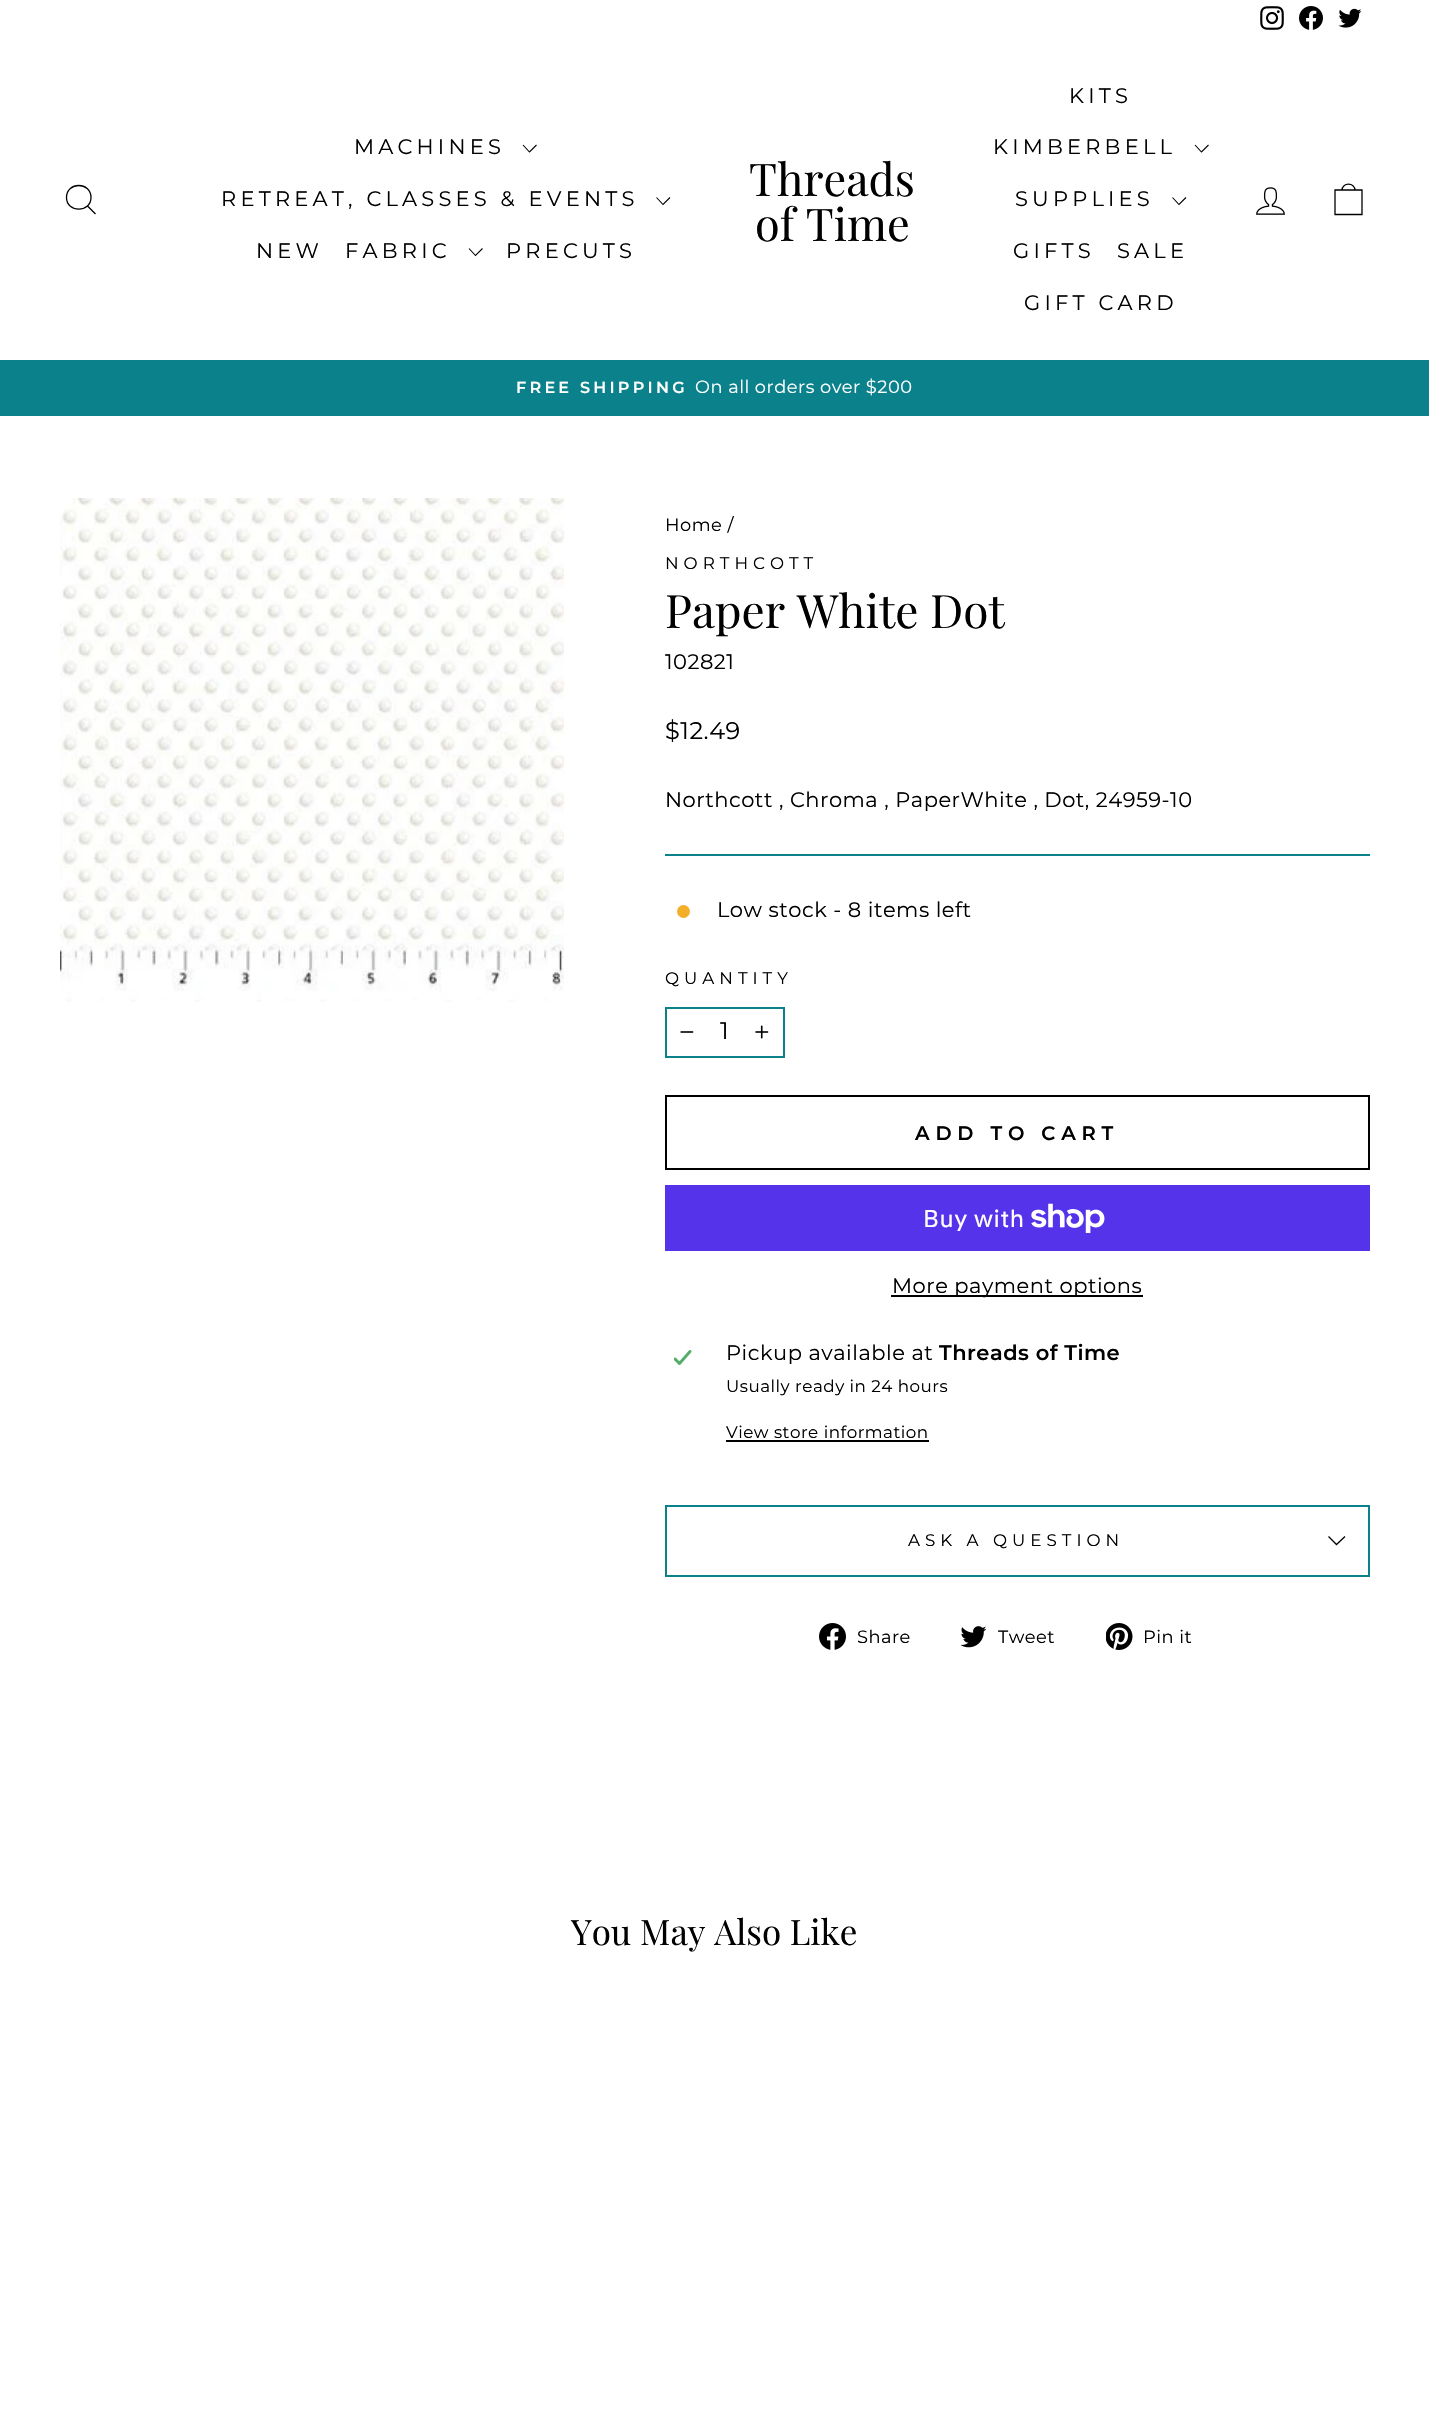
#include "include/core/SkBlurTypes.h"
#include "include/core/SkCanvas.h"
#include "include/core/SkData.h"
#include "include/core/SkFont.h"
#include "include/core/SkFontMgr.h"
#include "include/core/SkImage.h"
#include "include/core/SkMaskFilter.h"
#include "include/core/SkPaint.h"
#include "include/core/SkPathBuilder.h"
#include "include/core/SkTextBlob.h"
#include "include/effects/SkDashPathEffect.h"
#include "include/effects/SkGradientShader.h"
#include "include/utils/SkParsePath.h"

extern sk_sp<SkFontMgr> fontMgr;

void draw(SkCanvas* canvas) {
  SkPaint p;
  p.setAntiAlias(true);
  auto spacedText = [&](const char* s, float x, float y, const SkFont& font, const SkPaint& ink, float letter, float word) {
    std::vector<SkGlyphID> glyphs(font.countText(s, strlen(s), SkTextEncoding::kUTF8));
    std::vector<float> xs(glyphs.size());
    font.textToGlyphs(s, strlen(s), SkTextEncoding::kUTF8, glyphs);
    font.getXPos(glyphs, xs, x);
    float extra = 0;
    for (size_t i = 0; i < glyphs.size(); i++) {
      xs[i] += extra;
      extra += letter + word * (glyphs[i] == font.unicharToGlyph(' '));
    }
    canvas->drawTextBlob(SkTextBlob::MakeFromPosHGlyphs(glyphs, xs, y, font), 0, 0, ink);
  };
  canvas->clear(SK_ColorWHITE);
  canvas->drawImageRect(SkImages::DeferredFromEncodedData(SkData::MakeFromFileName("images/1.png")), SkRect::MakeLTRB(1260, 6, 1284, 30), SkSamplingOptions());
  canvas->drawImageRect(SkImages::DeferredFromEncodedData(SkData::MakeFromFileName("images/2.png")), SkRect::MakeLTRB(1299, 6, 1323, 30), SkSamplingOptions());
  canvas->drawImageRect(SkImages::DeferredFromEncodedData(SkData::MakeFromFileName("images/3.png")), SkRect::MakeLTRB(1338, 8, 1362, 28), SkSamplingOptions());
  p.setStyle(SkPaint::kStroke_Style);
  p.setStrokeWidth(1.3f);
  p.setColor(SK_ColorBLACK);
  canvas->drawPath(SkPathBuilder().moveTo(91, 197.5f).cubicTo(91, 213, 66.5f, 213, 66.5f, 197.5f).cubicTo(66.5f, 181.5f, 91, 181.5f, 91, 197.5f).close().moveTo(95.5f, 214).lineTo(87.5f, 206).detach(), p);
  p.setStrokeWidth(1.1f);
  canvas->drawPath(SkPathBuilder().moveTo(523, 145).lineTo(529.5f, 152).lineTo(536.5f, 145).detach(), p);
  canvas->drawPath(SkPathBuilder().moveTo(656.5f, 197.5f).lineTo(663, 204.5f).lineTo(670, 197.5f).detach(), p);
  canvas->drawPath(SkPathBuilder().moveTo(469, 248.5f).lineTo(475.5f, 255.5f).lineTo(482.5f, 248.5f).detach(), p);
  canvas->drawPath(SkPathBuilder().moveTo(1195, 145).lineTo(1201.5f, 152).lineTo(1208.5f, 145).detach(), p);
  canvas->drawPath(SkPathBuilder().moveTo(1172.5f, 197.5f).lineTo(1179, 204.5f).lineTo(1186, 197.5f).detach(), p);
  canvas->drawImageRect(SkImages::DeferredFromEncodedData(SkData::MakeFromFileName("images/4.png")), SkRect::MakeLTRB(1256, 187, 1285, 215), SkSamplingOptions());
  p.setStrokeWidth(1.3f);
  canvas->drawPath(SkPathBuilder().moveTo(1335, 190).lineTo(1362, 190).lineTo(1362, 214.5f).lineTo(1335, 214.5f).close().moveTo(1342, 190.5f).cubicTo(1342, 182, 1355, 182, 1355, 190.5f).detach(), p);
  p.setStyle(SkPaint::kFill_Style);
  p.setColor(SkColorSetRGB(10, 129, 139));
  canvas->drawRect(SkRect::MakeLTRB(0, 360, 1429, 416), p);
  canvas->drawImageRect(SkImages::DeferredFromEncodedData(SkData::MakeFromFileName("images/5.png")), SkRect::MakeLTRB(60, 498, 564, 1002), SkSamplingOptions());
  canvas->drawRect(SkRect::MakeLTRB(665, 854, 1370, 856), p);
  p.setColor(SkColorSetRGB(244, 175, 41));
  canvas->drawCircle(683.5f, 911.5f, 6.5f, p);
  p.setStyle(SkPaint::kStroke_Style);
  p.setStrokeWidth(2);
  p.setColor(SkColorSetRGB(10, 129, 139));
  canvas->drawRect(SkRect::MakeLTRB(666, 1008, 784, 1057), p);
  canvas->drawImageRect(SkImages::DeferredFromEncodedData(SkData::MakeFromFileName("images/6.png")), SkRect::MakeLTRB(680, 1031, 694, 1033), SkSamplingOptions());
  canvas->drawImageRect(SkImages::DeferredFromEncodedData(SkData::MakeFromFileName("images/7.png")), SkRect::MakeLTRB(755, 1025, 769, 1039), SkSamplingOptions());
  p.setColor(SK_ColorBLACK);
  canvas->drawRect(SkRect::MakeLTRB(666, 1096, 1369, 1169), p);
  p.setStyle(SkPaint::kFill_Style);
  p.setColor(SkColorSetRGB(84, 51, 235));
  canvas->drawRect(SkRect::MakeLTRB(665, 1185, 1370, 1251), p);
  canvas->drawImageRect(SkImages::DeferredFromEncodedData(SkData::MakeFromFileName("images/8.png")), SkRect::MakeLTRB(1031, 1203, 1105, 1233), SkSamplingOptions());
  p.setColor(SK_ColorBLACK);
  canvas->drawRect(SkRect::MakeLTRB(891, 1295, 1143, 1297), p);
  canvas->drawImageRect(SkImages::DeferredFromEncodedData(SkData::MakeFromFileName("images/9.png")), SkRect::MakeLTRB(674, 1350, 692, 1365), SkSamplingOptions());
  canvas->drawRect(SkRect::MakeLTRB(726, 1440, 929, 1442), p);
  p.setColor(SkColorSetRGB(10, 129, 139));
  canvas->drawRect(SkRect::MakeLTRB(665, 1575, 1370, 1577), p);
  canvas->drawRect(SkRect::MakeLTRB(665, 1505, 1370, 1507), p);
  canvas->drawRect(SkRect::MakeLTRB(1368, 1505, 1370, 1575), p);
  canvas->drawRect(SkRect::MakeLTRB(665, 1505, 667, 1575), p);
  p.setStyle(SkPaint::kStroke_Style);
  p.setStrokeWidth(1.3f);
  p.setColor(SK_ColorBLACK);
  canvas->drawPath(SkPathBuilder().moveTo(1328.5f, 1536.5f).lineTo(1336.5f, 1544.5f).lineTo(1345, 1536.5f).detach(), p);
  canvas->drawImageRect(SkImages::DeferredFromEncodedData(SkData::MakeFromFileName("images/10.png")), SkRect::MakeLTRB(819, 1623, 846, 1650), SkSamplingOptions());
  canvas->drawImageRect(SkImages::DeferredFromEncodedData(SkData::MakeFromFileName("images/11.png")), SkRect::MakeLTRB(960, 1626, 987, 1648), SkSamplingOptions());
  canvas->drawImageRect(SkImages::DeferredFromEncodedData(SkData::MakeFromFileName("images/12.png")), SkRect::MakeLTRB(1106, 1623, 1133, 1650), SkSamplingOptions());
  SkFont font1(fontMgr->matchFamilyStyle("Montserrat", SkFontStyle::Normal()), 21);
  font1.setSubpixel(true);
  p.setStyle(SkPaint::kFill_Style);
  spacedText("MACHINES", 354, 154, font1, p, 4.2f, 0);
  spacedText("RETREAT, CLASSES & EVENTS", 221, 206, font1, p, 4.2f, 0);
  spacedText("NEW", 256, 258, font1, p, 4.2f, 0);
  spacedText("FABRIC", 345, 258, font1, p, 4.2f, 0);
  spacedText("PRECUTS", 506, 258, font1, p, 4.2f, 0);
  SkFont font2(fontMgr->matchFamilyStyle("Playfair Display", SkFontStyle::Normal()), 45);
  font2.setSubpixel(true);
  canvas->drawString("Threads", 749, 196, font2, p);
  canvas->drawString("of Time", 755, 241, font2, p);
  spacedText("KITS", 1069, 103, font1, p, 4.2f, 0);
  spacedText("KIMBERBELL", 993, 154, font1, p, 4.2f, 0);
  spacedText("SUPPLIES", 1015, 206, font1, p, 4.2f, 0);
  spacedText("GIFTS", 1013, 258, font1, p, 4.2f, 0);
  spacedText("SALE", 1117, 258, font1, p, 4.2f, 0);
  spacedText("GIFT CARD", 1024, 310, font1, p, 4.2f, 0);
  SkFont font3(fontMgr->matchFamilyStyle("Montserrat", SkFontStyle(600, SkFontStyle::kNormal_Width, SkFontStyle::kUpright_Slant)), 16);
  font3.setSubpixel(true);
  p.setColor(SK_ColorWHITE);
  spacedText("FREE SHIPPING", 516, 393, font3, p, 3.25f, 0);
  SkFont font4(fontMgr->matchFamilyStyle("Montserrat", SkFontStyle::Normal()), 17.8f);
  font4.setSubpixel(true);
  spacedText("On all orders over $200", 695, 393, font4, p, 0.5f, 0);
  p.setColor(SK_ColorBLACK);
  spacedText("Home /", 665, 531, font4, p, 0.5f, 0);
  SkFont font5(fontMgr->matchFamilyStyle("Montserrat", SkFontStyle::Normal()), 16.75f);
  font5.setSubpixel(true);
  spacedText("NORTHCOTT", 665, 569, font5, p, 5, 0);
  SkFont font6(fontMgr->matchFamilyStyle("Playfair Display", SkFontStyle::Normal()), 46);
  font6.setSubpixel(true);
  canvas->drawString("Paper White Dot", 665, 628, font6, p);
  spacedText("102821", 665, 669, font1, p, 0.5f, 0);
  SkFont font7(fontMgr->matchFamilyStyle("Montserrat", SkFontStyle::Normal()), 24);
  font7.setSubpixel(true);
  spacedText("$12.49", 665, 739, font7, p, 0.5f, 0);
  spacedText("Northcott , Chroma , PaperWhite , Dot, 24959-10", 665, 807, font1, p, 0.5f, 0);
  spacedText("Low stock - 8 items left", 717, 917, font1, p, 0.5f, 0);
  spacedText("QUANTITY", 665, 984, font5, p, 5, 0);
  spacedText("1", 720, 1039, font7, p, 1, 0);
  SkFont font8(fontMgr->matchFamilyStyle("Montserrat", SkFontStyle(600, SkFontStyle::kNormal_Width, SkFontStyle::kUpright_Slant)), 19.5f);
  font8.setSubpixel(true);
  spacedText("ADD TO CART", 915, 1140, font8, p, 5.8f, 0);
  SkFont font9(fontMgr->matchFamilyStyle("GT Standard", SkFontStyle::Normal()), 24);
  font9.setSubpixel(true);
  p.setColor(SK_ColorWHITE);
  spacedText("Buy with", 923, 1227, font9, p, 0.5f, 0);
  p.setColor(SK_ColorBLACK);
  spacedText("More payment options", 892, 1293, font1, p, 0.5f, 0);
  spacedText("Pickup available at", 726, 1360, font1, p, 0.5f, 0);
  SkFont font10(fontMgr->matchFamilyStyle("Montserrat", SkFontStyle(600, SkFontStyle::kNormal_Width, SkFontStyle::kUpright_Slant)), 21);
  font10.setSubpixel(true);
  spacedText("Threads of Time", 939, 1360, font10, p, 0.5f, 0);
  spacedText("Usually ready in 24 hours", 726, 1392, font5, p, 0.5f, 0);
  spacedText("View store information", 726, 1438, font5, p, 0.5f, 0);
  spacedText("ASK A QUESTION", 908, 1546, font5, p, 5, 0);
  spacedText("Share", 857, 1643, font4, p, 0.5f, 0);
  spacedText("Tweet", 998, 1643, font4, p, 0.5f, 0);
  spacedText("Pin it", 1143, 1643, font4, p, 0.5f, 0);
  SkFont font11(fontMgr->matchFamilyStyle("Playfair Display", SkFontStyle::Normal()), 35);
  font11.setSubpixel(true);
  canvas->drawString("You May Also Like", 571, 1945, font11, p);
}
